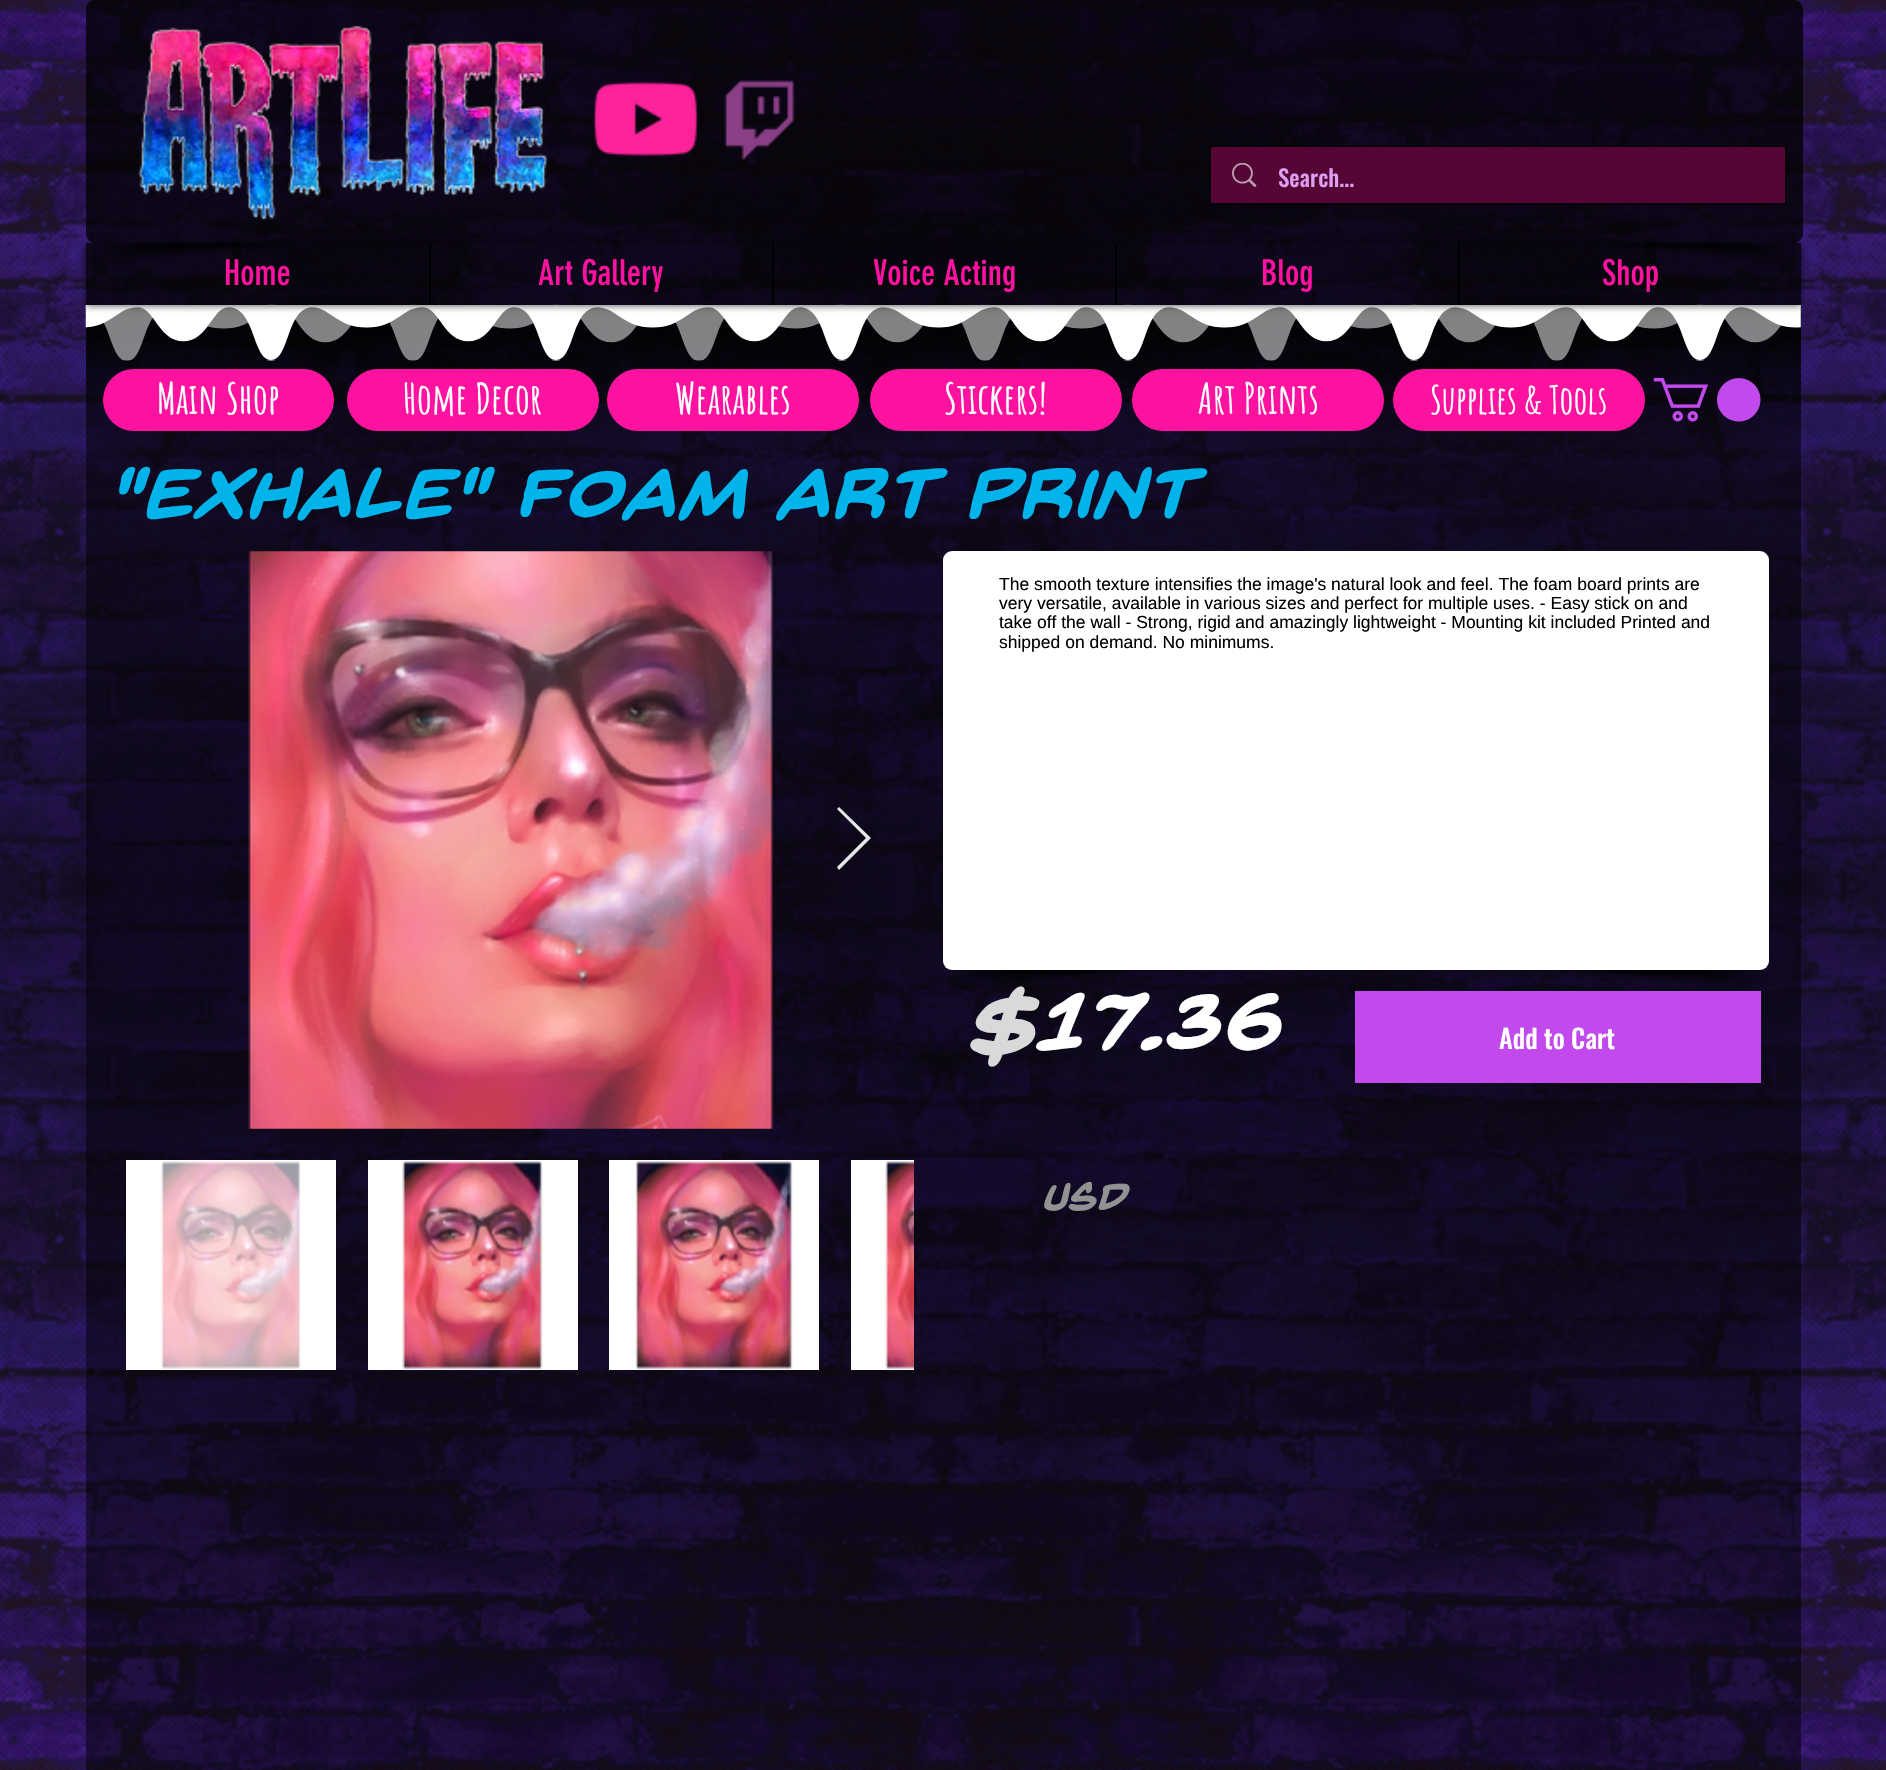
#include "include/core/SkBlurTypes.h"
#include "include/core/SkCanvas.h"
#include "include/core/SkData.h"
#include "include/core/SkFont.h"
#include "include/core/SkFontMgr.h"
#include "include/core/SkImage.h"
#include "include/core/SkMaskFilter.h"
#include "include/core/SkPaint.h"
#include "include/core/SkPathBuilder.h"
#include "include/core/SkTextBlob.h"
#include "include/effects/SkDashPathEffect.h"
#include "include/effects/SkGradientShader.h"
#include "include/utils/SkParsePath.h"

extern sk_sp<SkFontMgr> fontMgr;

void draw(SkCanvas* canvas) {
  SkPaint p;
  p.setAntiAlias(true);
  canvas->clear(SK_ColorWHITE);
  canvas->drawImageRect(SkImages::DeferredFromEncodedData(SkData::MakeFromFileName("images/1.png")), SkRect::MakeLTRB(0, 0, 1886, 1770), SkSamplingOptions());
  canvas->drawImageRect(SkImages::DeferredFromEncodedData(SkData::MakeFromFileName("images/2.png")), SkRect::MakeLTRB(0, 0, 1886, 1770), SkSamplingOptions());
  p.setColor(SkColorSetARGB(191, 0, 0, 0));
  canvas->drawRoundRect(SkRect::MakeLTRB(86, 0, 1803, 243), 9, 9, p);
  canvas->drawImageRect(SkImages::DeferredFromEncodedData(SkData::MakeFromFileName("images/3.png")), SkRect::MakeLTRB(138, 25, 548, 221), SkSamplingOptions());
  canvas->drawImageRect(SkImages::DeferredFromEncodedData(SkData::MakeFromFileName("images/4.png")), SkRect::MakeLTRB(593, 81, 699, 157), SkSamplingOptions());
  canvas->drawImageRect(SkImages::DeferredFromEncodedData(SkData::MakeFromFileName("images/5.png")), SkRect::MakeLTRB(724, 80, 795, 160), SkSamplingOptions());
  p.setStyle(SkPaint::kStroke_Style);
  p.setStrokeWidth(2);
  p.setColor(SkColorSetARGB(153, 0, 0, 0));
  canvas->drawRect(SkRect::MakeLTRB(1210, 146, 1786, 204), p);
  p.setStyle(SkPaint::kFill_Style);
  p.setColor(SkColorSetRGB(85, 6, 53));
  canvas->drawRect(SkRect::MakeLTRB(1211, 147, 1785, 203), p);
  canvas->drawImageRect(SkImages::DeferredFromEncodedData(SkData::MakeFromFileName("images/6.png")), SkRect::MakeLTRB(1232, 163, 1257, 187), SkSamplingOptions());
  canvas->drawImageRect(SkImages::DeferredFromEncodedData(SkData::MakeFromFileName("images/7.png")), SkRect::MakeLTRB(76, 243, 310, 271), SkSamplingOptions());
  canvas->drawImageRect(SkImages::DeferredFromEncodedData(SkData::MakeFromFileName("images/8.png")), SkRect::MakeLTRB(1578, 243, 1812, 271), SkSamplingOptions());
  p.setColor(SkColorSetARGB(128, 0, 0, 0));
  canvas->drawRect(SkRect::MakeLTRB(86, 306, 1801, 1770), p);
  {
    const SkColor colors[] = {SkColorSetARGB(0, 0, 0, 0), SK_ColorBLACK};
    const float stops[] = {0, 1};
    const SkPoint ends[] = {{943, 453}, {943, 305}};
    p.setShader(SkGradientShader::MakeLinear(ends, colors, stops, 2, SkTileMode::kClamp));
    p.setAlpha(255);
  }
  canvas->drawRect(SkRect::MakeLTRB(86, 305, 1801, 445), p);
  canvas->drawImageRect(SkImages::DeferredFromEncodedData(SkData::MakeFromFileName("images/9.png")), SkRect::MakeLTRB(85, 304, 1801, 361), SkSamplingOptions());
  canvas->drawImageRect(SkImages::DeferredFromEncodedData(SkData::MakeFromFileName("images/10.png")), SkRect::MakeLTRB(85, 304, 1801, 361), SkSamplingOptions());
  canvas->save();
  canvas->clipPath(SkPathBuilder(SkPathFillType::kEvenOdd).moveTo(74, 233).lineTo(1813, 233).lineTo(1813, 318).lineTo(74, 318).close().moveTo(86, 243).lineTo(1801, 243).lineTo(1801, 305).lineTo(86, 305).close().detach(), true);
  p.setShader(nullptr);
  p.setColor(SkColorSetARGB(153, 0, 0, 0));
  p.setMaskFilter(SkMaskFilter::MakeBlur(kNormal_SkBlurStyle, 3.5f));
  canvas->drawRect(SkRect::MakeLTRB(86, 245, 1801, 306), p);
  p.setMaskFilter(nullptr);
  canvas->restore();
  p.setColor(SkColorSetARGB(189, 0, 0, 0));
  canvas->drawRect(SkRect::MakeLTRB(86, 243, 1801, 305), p);
  p.setColor(SK_ColorBLACK);
  canvas->drawRect(SkRect::MakeLTRB(429, 243, 431, 305), p);
  canvas->drawRect(SkRect::MakeLTRB(772, 243, 774, 305), p);
  canvas->drawRect(SkRect::MakeLTRB(1115, 243, 1117, 305), p);
  canvas->drawRect(SkRect::MakeLTRB(1458, 243, 1460, 305), p);
  p.setColor(SkColorSetRGB(255, 18, 160));
  canvas->drawRoundRect(SkRect::MakeLTRB(103, 369, 334, 431), 31, 31, p);
  canvas->drawRoundRect(SkRect::MakeLTRB(347, 369, 599, 431), 31, 31, p);
  canvas->drawRoundRect(SkRect::MakeLTRB(607, 369, 859, 431), 31, 31, p);
  canvas->drawRoundRect(SkRect::MakeLTRB(870, 369, 1122, 431), 31, 31, p);
  canvas->drawRoundRect(SkRect::MakeLTRB(1132, 369, 1384, 431), 31, 31, p);
  canvas->drawRoundRect(SkRect::MakeLTRB(1393, 369, 1645, 431), 31, 31, p);
  canvas->drawImageRect(SkImages::DeferredFromEncodedData(SkData::MakeFromFileName("images/11.png")), SkRect::MakeLTRB(1653, 378, 1761, 422), SkSamplingOptions());
  canvas->drawImageRect(SkImages::DeferredFromEncodedData(SkData::MakeFromFileName("images/12.png")), SkRect::MakeLTRB(248, 551, 776, 1129), SkSamplingOptions());
  p.setColor(SkColorSetARGB(230, 255, 255, 255));
  canvas->drawPath(SkPathBuilder().moveTo(837, 809).lineTo(839, 807).lineTo(871, 838).lineTo(839, 870).lineTo(837, 867).lineTo(866, 838).close().detach(), p);
  p.setColor(SK_ColorWHITE);
  canvas->drawRect(SkRect::MakeLTRB(126, 1160, 336, 1370), p);
  canvas->drawImageRect(SkImages::DeferredFromEncodedData(SkData::MakeFromFileName("images/13.png")), SkRect::MakeLTRB(160, 1161, 301, 1370), SkSamplingOptions());
  p.setColor(SkColorSetARGB(153, 255, 255, 255));
  canvas->drawRect(SkRect::MakeLTRB(160, 1161, 301, 1370), p);
  p.setColor(SK_ColorWHITE);
  canvas->drawRect(SkRect::MakeLTRB(368, 1160, 578, 1370), p);
  canvas->drawImageRect(SkImages::DeferredFromEncodedData(SkData::MakeFromFileName("images/14.png")), SkRect::MakeLTRB(402, 1161, 543, 1370), SkSamplingOptions());
  canvas->drawRect(SkRect::MakeLTRB(609, 1160, 819, 1370), p);
  canvas->drawImageRect(SkImages::DeferredFromEncodedData(SkData::MakeFromFileName("images/15.png")), SkRect::MakeLTRB(635, 1161, 793, 1370), SkSamplingOptions());
  canvas->drawRect(SkRect::MakeLTRB(851, 1160, 914, 1370), p);
  canvas->drawImageRect(SkImages::DeferredFromEncodedData(SkData::MakeFromFileName("images/16.png")), SkRect::MakeLTRB(885, 1161, 914, 1370), SkSamplingOptions());
  canvas->drawImageRect(SkImages::DeferredFromEncodedData(SkData::MakeFromFileName("images/17.png")), SkRect::MakeLTRB(948, 969, 1157, 992), SkSamplingOptions());
  canvas->drawImageRect(SkImages::DeferredFromEncodedData(SkData::MakeFromFileName("images/18.png")), SkRect::MakeLTRB(1560, 969, 1765, 990), SkSamplingOptions());
  canvas->drawRoundRect(SkRect::MakeLTRB(943, 551, 1769, 970), 9, 9, p);
  p.setColor(SkColorSetRGB(194, 74, 237));
  canvas->drawRect(SkRect::MakeLTRB(1355, 991, 1761, 1083), p);
  SkFont font1(fontMgr->matchFamilyStyle("Oswald", SkFontStyle(500, SkFontStyle::kNormal_Width, SkFontStyle::kUpright_Slant)), 23);
  font1.setSubpixel(true);
  p.setColor(SkColorSetRGB(221, 159, 243));
  canvas->drawString("Search...", 1278, 187, font1, p);
  SkFont font2(fontMgr->matchFamilyStyle("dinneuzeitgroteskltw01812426", SkFontStyle::Normal()), 35);
  font2.setSubpixel(true);
  p.setColor(SkColorSetRGB(255, 18, 160));
  canvas->drawString("Home", 224, 285, font2, p);
  canvas->drawString("Art Gallery", 538, 285, font2, p);
  canvas->drawString("Voice Acting", 873, 285, font2, p);
  canvas->drawString("Blog", 1261, 285, font2, p);
  canvas->drawString("Shop", 1602, 285, font2, p);
  SkFont font3(fontMgr->matchFamilyStyle("Amatic SC", SkFontStyle::Bold()), 42);
  font3.setSubpixel(true);
  p.setColor(SK_ColorWHITE);
  canvas->drawString("Main Shop", 157, 414, font3, p);
  canvas->drawString("Home Decor", 403, 414, font3, p);
  canvas->drawString("Wearables", 675, 414, font3, p);
  canvas->drawString("Stickers!", 944, 414, font3, p);
  canvas->drawString("Art Prints", 1198, 414, font3, p);
  SkFont font4(fontMgr->matchFamilyStyle("Amatic SC", SkFontStyle::Bold()), 38.5f);
  font4.setSubpixel(true);
  canvas->drawString("Supplies & Tools", 1430, 414, font4, p);
  SkFont font5(fontMgr->matchFamilyStyle("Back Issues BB", SkFontStyle::BoldItalic()), 63);
  font5.setSubpixel(true);
  p.setColor(SkColorSetRGB(0, 180, 235));
  canvas->drawString("\"Exhale\" Foam Art Print", 110, 515, font5, p);
  SkFont font6(fontMgr->matchFamilyStyle("Liberation Sans", SkFontStyle::Normal()), 17.5f);
  font6.setSubpixel(true);
  p.setColor(SK_ColorBLACK);
  canvas->drawString("The smooth texture intensifies the image's natural look and feel. The foam board prints are", 999, 590, font6, p);
  canvas->drawString("very versatile, available in various sizes and perfect for multiple uses. - Easy stick on and", 999, 609, font6, p);
  canvas->drawString("take off the wall - Strong, rigid and amazingly lightweight - Mounting kit included Printed and", 999, 628, font6, p);
  canvas->drawString("shipped on demand. No minimums.", 999, 648, font6, p);
  SkFont font7(fontMgr->matchFamilyStyle("Back Issues BB", SkFontStyle::BoldItalic()), 79);
  font7.setSubpixel(true);
  p.setColor(SkColorSetRGB(217, 217, 217));
  canvas->drawString("$", 966, 1052, font7, p);
  SkFont font8(fontMgr->matchFamilyStyle("Back Issues BB", SkFontStyle::BoldItalic()), 70);
  font8.setSubpixel(true);
  p.setColor(SK_ColorWHITE);
  canvas->drawString("17.36", 1038, 1045, font8, p);
  SkFont font9(fontMgr->matchFamilyStyle("Back Issues BB", SkFontStyle::BoldItalic()), 33);
  font9.setSubpixel(true);
  p.setColor(SkColorSetRGB(146, 146, 146));
  canvas->drawString("USD", 1043, 1208, font9, p);
  SkFont font10(fontMgr->matchFamilyStyle("Oswald", SkFontStyle(500, SkFontStyle::kNormal_Width, SkFontStyle::kUpright_Slant)), 26.25f);
  font10.setSubpixel(true);
  p.setColor(SK_ColorWHITE);
  canvas->drawString("Add to Cart", 1499, 1049, font10, p);
}
